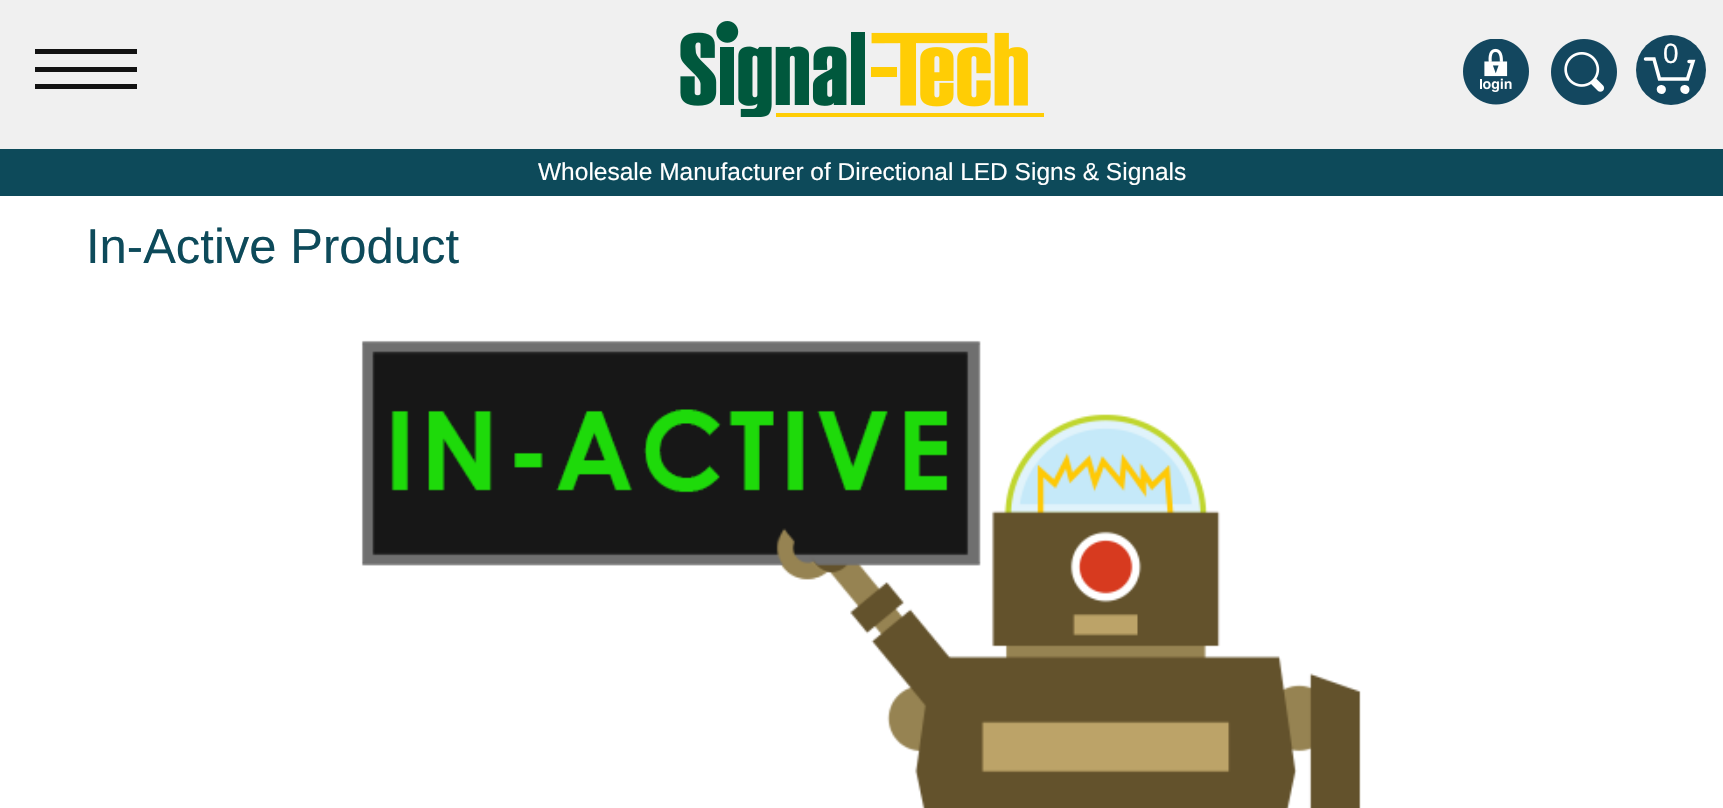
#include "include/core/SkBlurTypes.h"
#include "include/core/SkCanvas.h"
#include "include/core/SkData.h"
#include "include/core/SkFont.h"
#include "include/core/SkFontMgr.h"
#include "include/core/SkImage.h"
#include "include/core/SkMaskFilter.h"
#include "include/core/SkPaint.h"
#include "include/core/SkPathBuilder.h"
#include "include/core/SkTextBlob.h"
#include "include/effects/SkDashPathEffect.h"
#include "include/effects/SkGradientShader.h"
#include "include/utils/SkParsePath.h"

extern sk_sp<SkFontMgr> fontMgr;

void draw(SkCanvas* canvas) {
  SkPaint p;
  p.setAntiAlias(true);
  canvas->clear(SK_ColorWHITE);
  p.setColor(SkColorSetRGB(240, 240, 240));
  canvas->drawRect(SkRect::MakeLTRB(0, 0, 1723, 149), p);
  p.setColor(SkColorSetRGB(18, 18, 18));
  canvas->drawRect(SkRect::MakeLTRB(35, 67, 137, 72), p);
  canvas->drawRect(SkRect::MakeLTRB(35, 49, 137, 54), p);
  canvas->drawRect(SkRect::MakeLTRB(35, 84, 137, 89), p);
  canvas->drawImageRect(SkImages::DeferredFromEncodedData(SkData::MakeFromFileName("images/1.png")), SkRect::MakeLTRB(680, 21, 1044, 117), SkSamplingOptions());
  canvas->drawImageRect(SkImages::DeferredFromEncodedData(SkData::MakeFromFileName("images/2.png")), SkRect::MakeLTRB(1463, 39, 1529, 105), SkSamplingOptions());
  canvas->drawImageRect(SkImages::DeferredFromEncodedData(SkData::MakeFromFileName("images/3.png")), SkRect::MakeLTRB(1551, 39, 1617, 105), SkSamplingOptions());
  p.setColor(SkColorSetRGB(19, 71, 95));
  canvas->drawCircle(1671, 70, 35, p);
  p.setStyle(SkPaint::kStroke_Style);
  p.setStrokeWidth(3.5f);
  p.setStrokeCap(SkPaint::kRound_Cap);
  p.setColor(SK_ColorWHITE);
  canvas->drawPath(SkPathBuilder().moveTo(1645.5f, 59).lineTo(1654, 59).lineTo(1659.5f, 79).lineTo(1687.5f, 79).lineTo(1693, 61.5f).lineTo(1689, 61.5f).detach(), p);
  p.setStyle(SkPaint::kFill_Style);
  canvas->drawPath(SkPathBuilder().moveTo(1661.5f, 94).cubicTo(1655.5f, 94, 1655, 85, 1661, 85).cubicTo(1667.5f, 84.5f, 1667.5f, 94, 1661.5f, 94).close().moveTo(1685.5f, 94).cubicTo(1679, 94, 1678.5f, 85, 1684.5f, 85).cubicTo(1691, 84.5f, 1691, 94, 1685.5f, 94).close().detach(), p);
  p.setColor(SkColorSetRGB(13, 74, 90));
  canvas->drawRect(SkRect::MakeLTRB(0, 149, 1723, 196), p);
  canvas->drawImageRect(SkImages::DeferredFromEncodedData(SkData::MakeFromFileName("images/4.png")), SkRect::MakeLTRB(361, 340, 1361, 808), SkSamplingOptions());
  SkFont font1(fontMgr->matchFamilyStyle("Liberation Sans", SkFontStyle::Normal()), 28);
  font1.setSubpixel(true);
  p.setColor(SK_ColorWHITE);
  canvas->drawString("0", 1663, 63, font1, p);
  SkFont font2(fontMgr->matchFamilyStyle("Liberation Sans", SkFontStyle::Normal()), 24.5f);
  font2.setSubpixel(true);
  canvas->drawString("Wholesale Manufacturer of Directional LED Signs & Signals", 538, 180, font2, p);
  SkFont font3(fontMgr->matchFamilyStyle("Liberation Sans", SkFontStyle::Normal()), 49);
  font3.setSubpixel(true);
  p.setColor(SkColorSetRGB(13, 74, 90));
  canvas->drawString("In-Active Product", 86, 263, font3, p);
}
